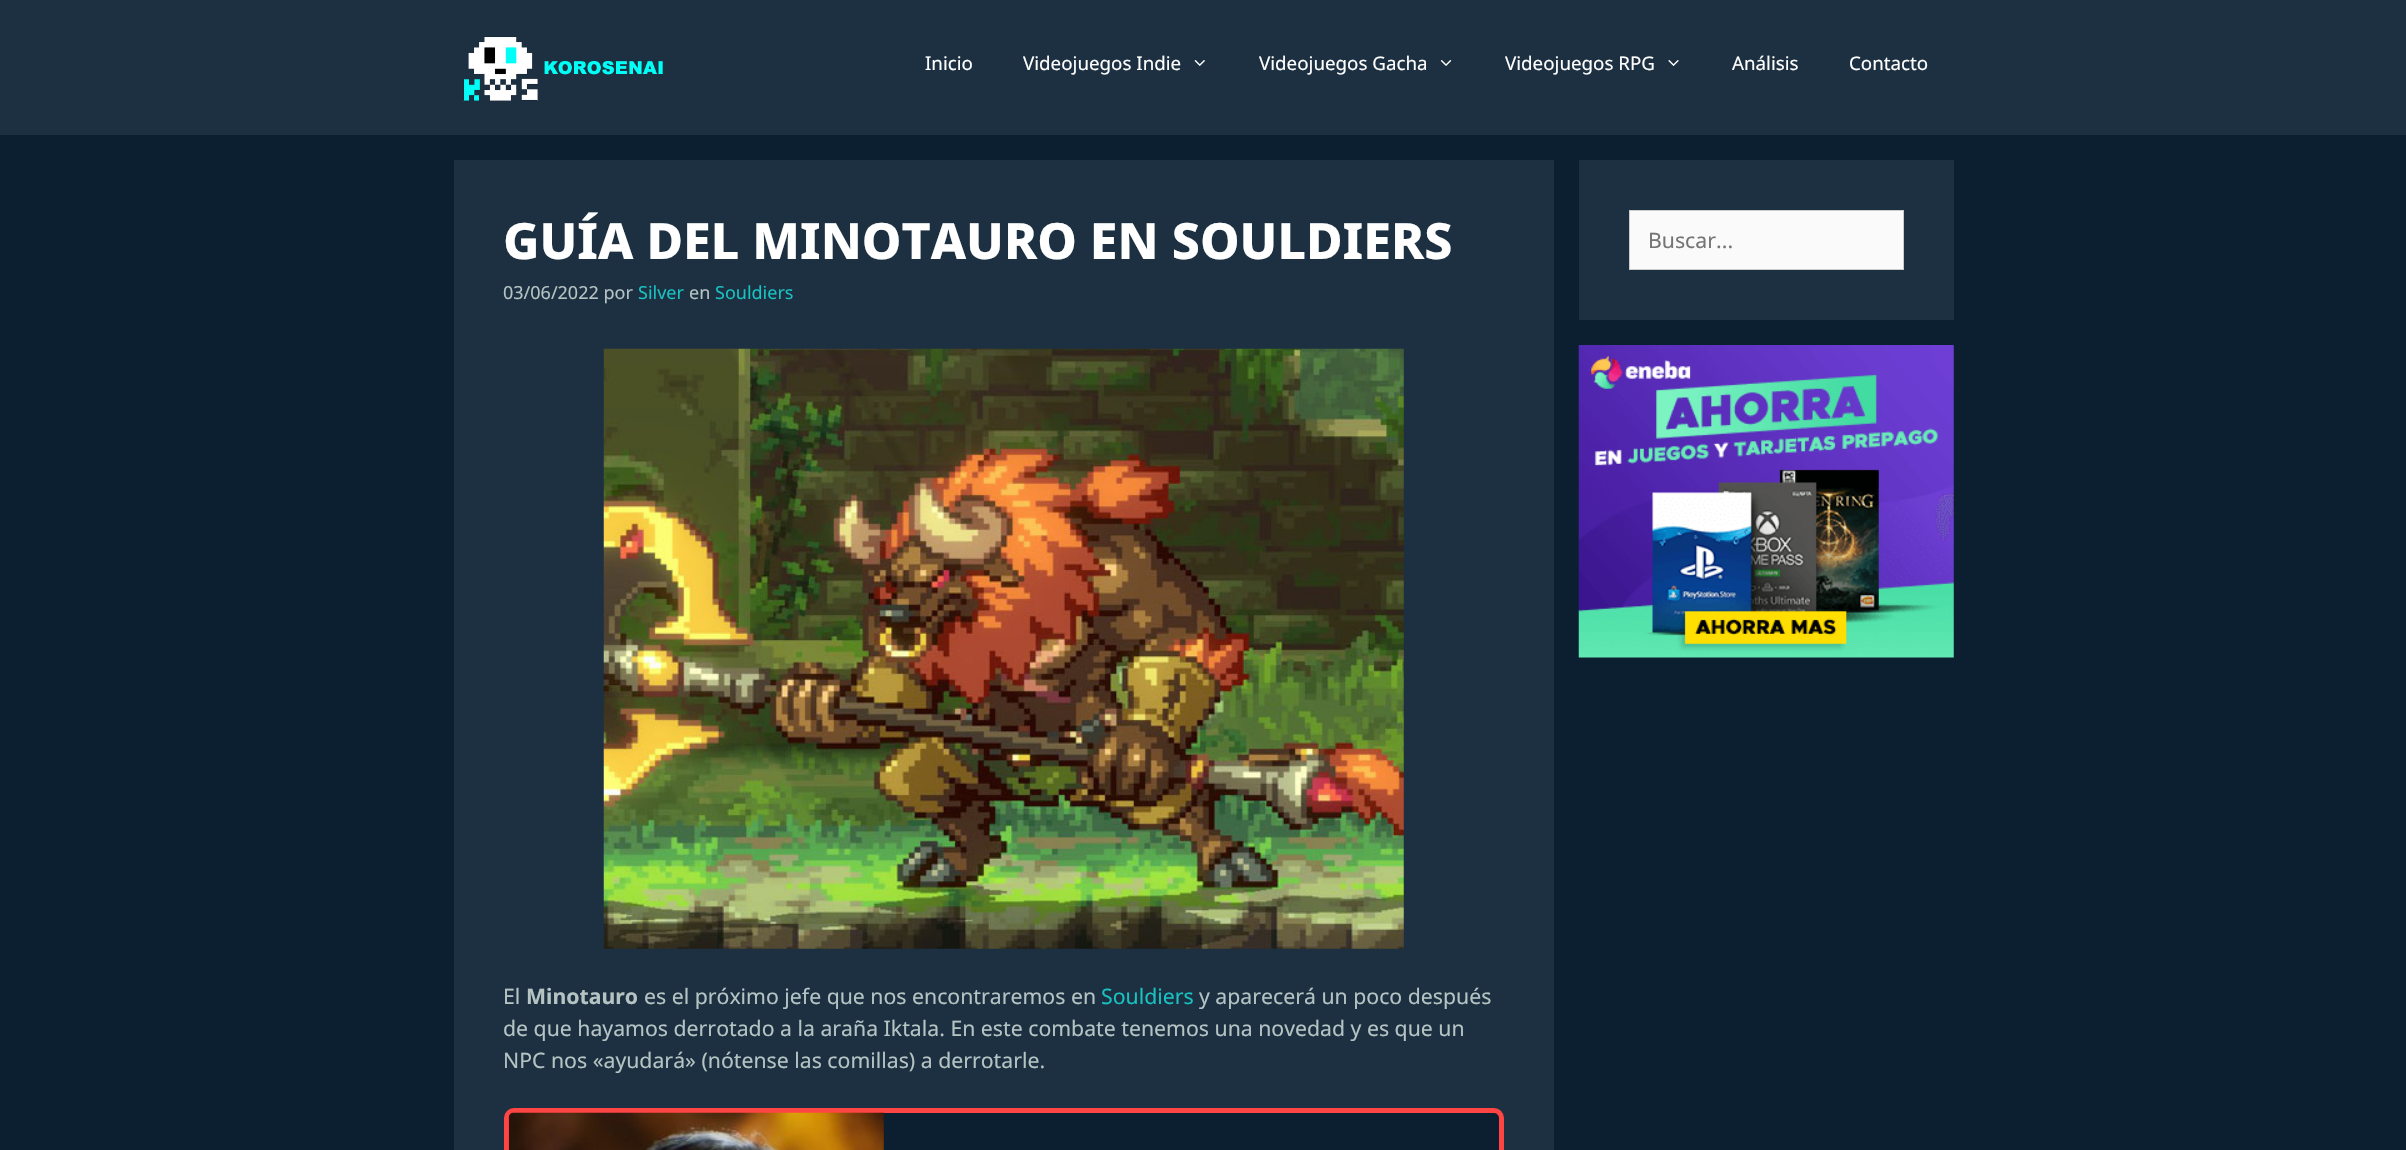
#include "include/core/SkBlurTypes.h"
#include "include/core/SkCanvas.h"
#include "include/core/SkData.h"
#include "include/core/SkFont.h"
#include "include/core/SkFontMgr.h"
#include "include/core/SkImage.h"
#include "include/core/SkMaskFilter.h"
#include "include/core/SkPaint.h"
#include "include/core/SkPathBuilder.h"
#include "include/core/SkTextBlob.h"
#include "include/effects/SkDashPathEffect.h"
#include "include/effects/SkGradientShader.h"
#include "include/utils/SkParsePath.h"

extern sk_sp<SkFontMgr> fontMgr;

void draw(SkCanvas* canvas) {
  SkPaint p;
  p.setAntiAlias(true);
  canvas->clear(SkColorSetRGB(12, 31, 48));
  p.setColor(SkColorSetRGB(28, 48, 65));
  canvas->drawRect(SkRect::MakeLTRB(0, 0, 2406, 135), p);
  canvas->drawImageRect(SkImages::DeferredFromEncodedData(SkData::MakeFromFileName("images/1.png")), SkRect::MakeLTRB(463, 36, 663, 101), SkSamplingOptions());
  canvas->drawImageRect(SkImages::DeferredFromEncodedData(SkData::MakeFromFileName("images/2.png")), SkRect::MakeLTRB(1194, 60, 1205, 66), SkSamplingOptions());
  canvas->drawImageRect(SkImages::DeferredFromEncodedData(SkData::MakeFromFileName("images/3.png")), SkRect::MakeLTRB(1440, 60, 1452, 66), SkSamplingOptions());
  canvas->drawImageRect(SkImages::DeferredFromEncodedData(SkData::MakeFromFileName("images/4.png")), SkRect::MakeLTRB(1668, 60, 1679, 66), SkSamplingOptions());
  canvas->drawRect(SkRect::MakeLTRB(454, 160, 1554, 1150), p);
  canvas->drawImageRect(SkImages::DeferredFromEncodedData(SkData::MakeFromFileName("images/5.png")), SkRect::MakeLTRB(603, 348, 1404, 949), SkSamplingOptions());
  p.setColor(SkColorSetRGB(12, 31, 48));
  canvas->drawRoundRect(SkRect::MakeLTRB(506.5f, 1110.5f, 1501.5f, 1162.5f), 7.5f, 7.5f, p);
  p.setStyle(SkPaint::kStroke_Style);
  p.setStrokeWidth(5);
  p.setColor(SkColorSetRGB(255, 68, 68));
  canvas->drawRoundRect(SkRect::MakeLTRB(506.5f, 1110.5f, 1501.5f, 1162.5f), 7.5f, 7.5f, p);
  canvas->drawImageRect(SkImages::DeferredFromEncodedData(SkData::MakeFromFileName("images/6.png")), SkRect::MakeLTRB(508, 1112, 884, 1150), SkSamplingOptions());
  p.setStyle(SkPaint::kFill_Style);
  p.setColor(SkColorSetRGB(28, 48, 65));
  canvas->drawRect(SkRect::MakeLTRB(1579, 160, 1954, 320), p);
  p.setColor(SkColorSetRGB(250, 250, 250));
  canvas->drawRect(SkRect::MakeLTRB(1629.5f, 210.5f, 1903.5f, 269.5f), p);
  p.setStyle(SkPaint::kStroke_Style);
  p.setStrokeWidth(1);
  p.setColor(SkColorSetRGB(204, 204, 204));
  canvas->drawRect(SkRect::MakeLTRB(1629.5f, 210.5f, 1903.5f, 269.5f), p);
  canvas->drawImageRect(SkImages::DeferredFromEncodedData(SkData::MakeFromFileName("images/7.png")), SkRect::MakeLTRB(1578, 345, 1954, 658), SkSamplingOptions());
  SkFont font1(fontMgr->matchFamilyStyle("Noto Sans", SkFontStyle::Normal()), 18.75f);
  font1.setSubpixel(true);
  p.setStyle(SkPaint::kFill_Style);
  p.setColor(SK_ColorWHITE);
  canvas->drawString("Inicio", 925, 70, font1, p);
  canvas->drawString("Videojuegos Indie", 1023, 70, font1, p);
  canvas->drawString("Videojuegos Gacha", 1259, 70, font1, p);
  canvas->drawString("Videojuegos RPG", 1505, 70, font1, p);
  canvas->drawString("Análisis", 1732, 70, font1, p);
  canvas->drawString("Contacto", 1849, 70, font1, p);
  SkFont font2(fontMgr->matchFamilyStyle("Noto Sans", SkFontStyle(800, SkFontStyle::kNormal_Width, SkFontStyle::kUpright_Slant)), 50);
  font2.setSubpixel(true);
  canvas->drawString("GUÍA DEL MINOTAURO EN SOULDIERS", 503, 259, font2, p);
  SkFont font3(fontMgr->matchFamilyStyle("Noto Sans", SkFontStyle::Normal()), 18);
  font3.setSubpixel(true);
  p.setColor(SkColorSetRGB(181, 195, 195));
  canvas->drawString("03/06/2022 por", 503, 299, font3, p);
  p.setColor(SkColorSetRGB(25, 193, 193));
  canvas->drawString("Silver", 638, 299, font3, p);
  p.setColor(SkColorSetRGB(181, 195, 195));
  canvas->drawString("en", 689, 299, font3, p);
  p.setColor(SkColorSetRGB(25, 193, 193));
  canvas->drawString("Souldiers", 715, 299, font3, p);
  SkFont font4(fontMgr->matchFamilyStyle("Noto Sans", SkFontStyle::Normal()), 21.25f);
  font4.setSubpixel(true);
  p.setColor(SkColorSetRGB(181, 195, 195));
  canvas->drawString("El", 503, 1004, font4, p);
  SkFont font5(fontMgr->matchFamilyStyle("Noto Sans", SkFontStyle::Bold()), 21.25f);
  font5.setSubpixel(true);
  canvas->drawString("Minotauro", 526, 1004, font5, p);
  canvas->drawString("es el próximo jefe que nos encontraremos en", 644, 1004, font4, p);
  p.setColor(SkColorSetRGB(25, 193, 193));
  canvas->drawString("Souldiers", 1101, 1004, font4, p);
  p.setColor(SkColorSetRGB(181, 195, 195));
  canvas->drawString("y aparecerá un poco después", 1199, 1004, font4, p);
  canvas->drawString("de que hayamos derrotado a la araña Iktala. En este combate tenemos una novedad y es que un", 503, 1036, font4, p);
  canvas->drawString("NPC nos «ayudará» (nótense las comillas) a derrotarle.", 503, 1068, font4, p);
  p.setColor(SkColorSetRGB(117, 117, 117));
  canvas->drawString("Buscar...", 1648, 248, font4, p);
}
